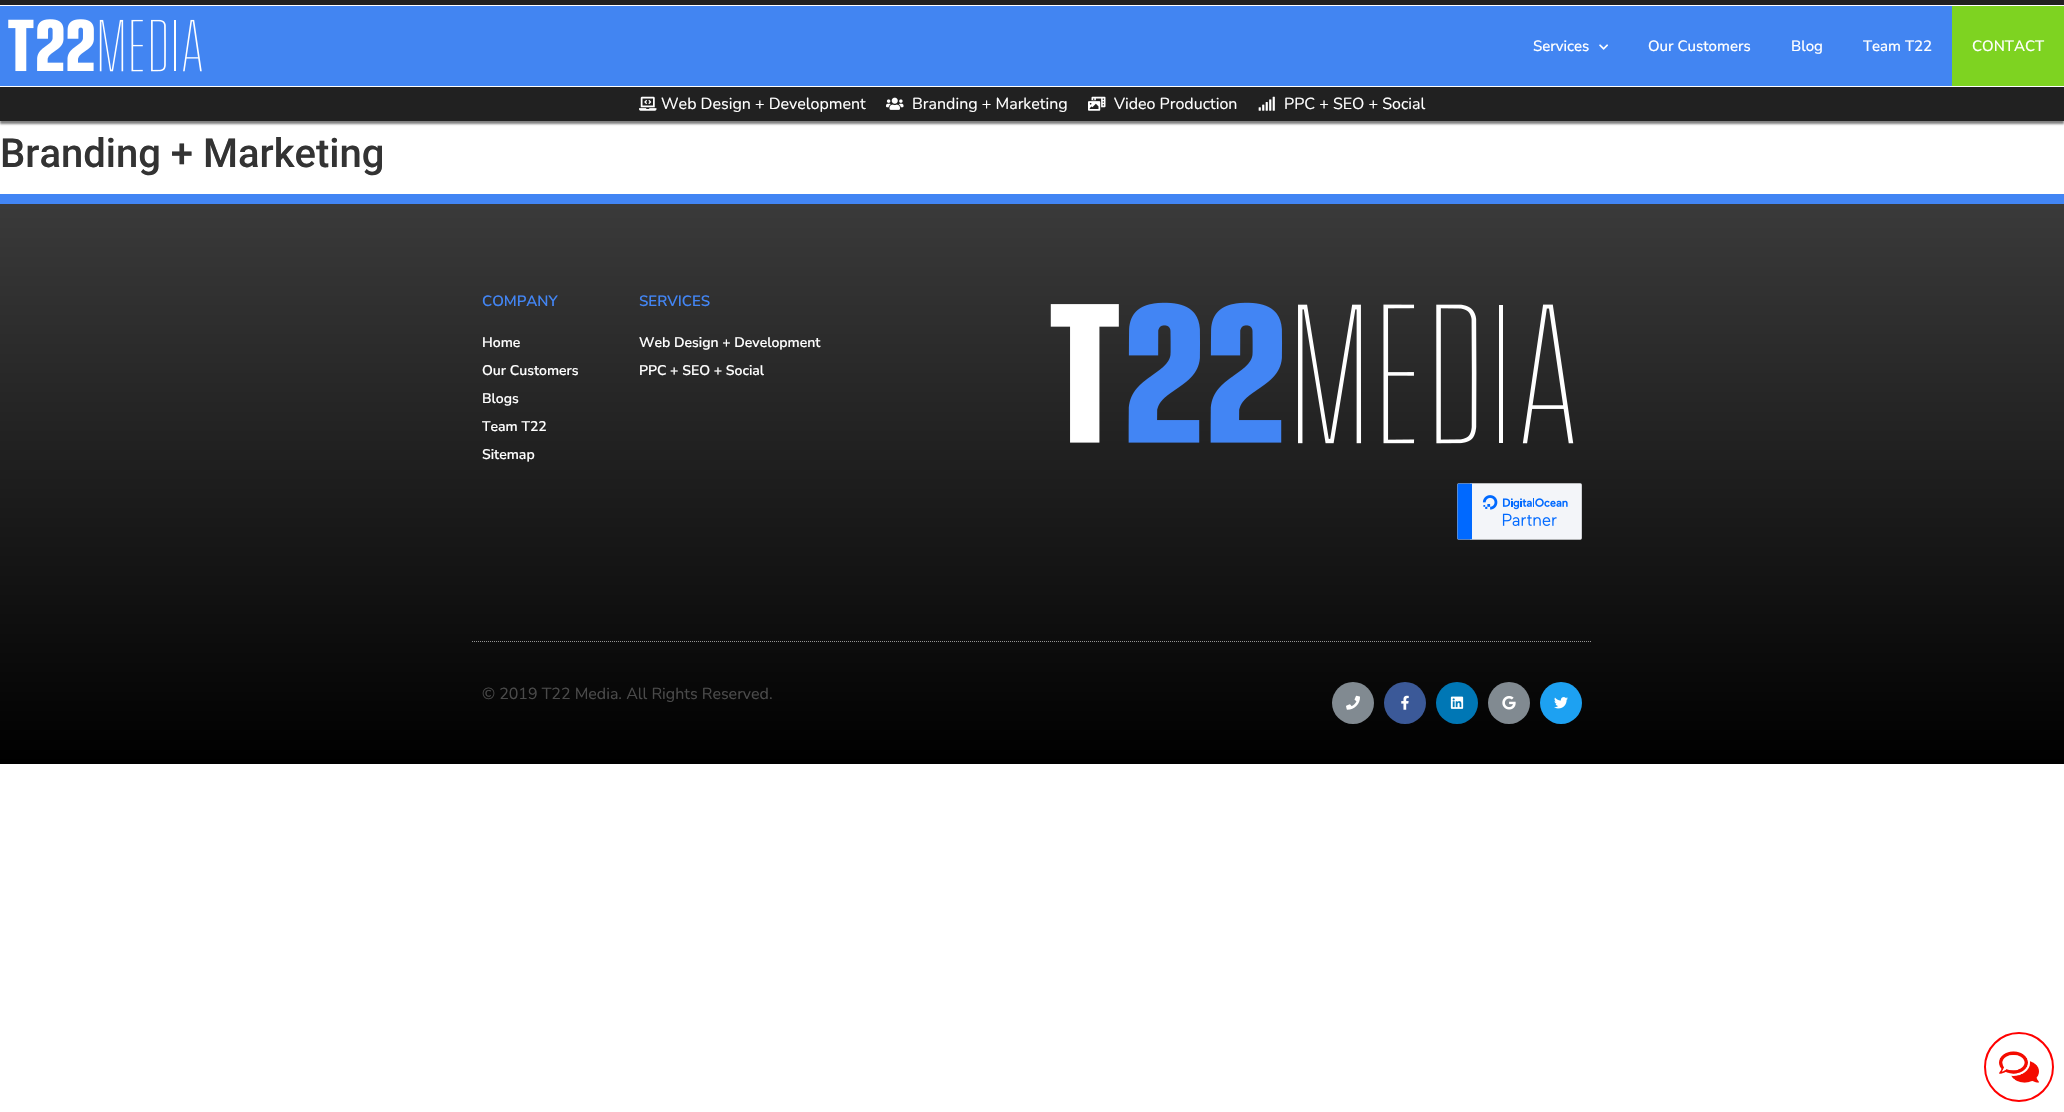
#include "include/core/SkBlurTypes.h"
#include "include/core/SkCanvas.h"
#include "include/core/SkData.h"
#include "include/core/SkFont.h"
#include "include/core/SkFontMgr.h"
#include "include/core/SkImage.h"
#include "include/core/SkMaskFilter.h"
#include "include/core/SkPaint.h"
#include "include/core/SkPathBuilder.h"
#include "include/core/SkTextBlob.h"
#include "include/effects/SkDashPathEffect.h"
#include "include/effects/SkGradientShader.h"
#include "include/utils/SkParsePath.h"

extern sk_sp<SkFontMgr> fontMgr;

void draw(SkCanvas* canvas) {
  SkPaint p;
  p.setAntiAlias(true);
  canvas->clear(SK_ColorWHITE);
  p.setColor(SkColorSetRGB(33, 33, 33));
  canvas->drawRect(SkRect::MakeLTRB(0, 0, 2064, 5), p);
  p.setColor(SkColorSetRGB(66, 133, 242));
  canvas->drawRect(SkRect::MakeLTRB(0, 6, 1952, 86), p);
  canvas->drawImageRect(SkImages::DeferredFromEncodedData(SkData::MakeFromFileName("images/1.png")), SkRect::MakeLTRB(8, 19, 202, 72), SkSamplingOptions());
  canvas->drawImageRect(SkImages::DeferredFromEncodedData(SkData::MakeFromFileName("images/2.png")), SkRect::MakeLTRB(1599, 44, 1608, 50), SkSamplingOptions());
  p.setColor(SkColorSetARGB(128, 0, 0, 0));
  p.setMaskFilter(SkMaskFilter::MakeBlur(kNormal_SkBlurStyle, 1));
  canvas->drawRect(SkRect::MakeLTRB(0, 89, 2064, 124), p);
  p.setMaskFilter(nullptr);
  p.setColor(SkColorSetRGB(126, 211, 33));
  canvas->drawRect(SkRect::MakeLTRB(1952, 6, 2064, 86), p);
  p.setColor(SkColorSetRGB(33, 33, 33));
  canvas->drawRect(SkRect::MakeLTRB(0, 87, 2064, 121), p);
  canvas->drawImageRect(SkImages::DeferredFromEncodedData(SkData::MakeFromFileName("images/3.png")), SkRect::MakeLTRB(639, 96, 657, 111), SkSamplingOptions());
  canvas->drawImageRect(SkImages::DeferredFromEncodedData(SkData::MakeFromFileName("images/4.png")), SkRect::MakeLTRB(886, 97, 904, 110), SkSamplingOptions());
  canvas->drawImageRect(SkImages::DeferredFromEncodedData(SkData::MakeFromFileName("images/5.png")), SkRect::MakeLTRB(1088, 96, 1106, 111), SkSamplingOptions());
  canvas->drawImageRect(SkImages::DeferredFromEncodedData(SkData::MakeFromFileName("images/6.png")), SkRect::MakeLTRB(1258, 96, 1275, 111), SkSamplingOptions());
  {
    const SkColor colors[] = {SK_ColorBLACK, SkColorSetRGB(58, 58, 58)};
    const float stops[] = {0, 1};
    const SkPoint ends[] = {{1032, 764}, {1032, 204}};
    p.setShader(SkGradientShader::MakeLinear(ends, colors, stops, 2, SkTileMode::kClamp));
    p.setAlpha(255);
  }
  canvas->drawRect(SkRect::MakeLTRB(0, 204, 2064, 764), p);
  p.setShader(nullptr);
  p.setColor(SkColorSetRGB(66, 133, 244));
  canvas->drawRect(SkRect::MakeLTRB(0, 194, 2064, 204), p);
  canvas->drawImageRect(SkImages::DeferredFromEncodedData(SkData::MakeFromFileName("images/7.png")), SkRect::MakeLTRB(1050, 302, 1574, 444), SkSamplingOptions());
  canvas->drawImageRect(SkImages::DeferredFromEncodedData(SkData::MakeFromFileName("images/8.png")), SkRect::MakeLTRB(1457, 483, 1582, 540), SkSamplingOptions());
  p.setStyle(SkPaint::kStroke_Style);
  p.setStrokeWidth(1);
  p.setColor(SkColorSetRGB(149, 149, 149));
  p.setPathEffect(SkDashPathEffect::Make({{1, 1}}, 0));
  canvas->drawPath(SkPathBuilder().moveTo(472, 641.5f).lineTo(1592, 641.5f).detach(), p);
  p.setPathEffect(nullptr);
  p.setStyle(SkPaint::kFill_Style);
  p.setColor(SkColorSetRGB(129, 138, 145));
  canvas->drawCircle(1353, 703, 21, p);
  canvas->drawImageRect(SkImages::DeferredFromEncodedData(SkData::MakeFromFileName("images/9.png")), SkRect::MakeLTRB(1346, 695, 1360, 710), SkSamplingOptions());
  p.setColor(SkColorSetRGB(59, 89, 152));
  canvas->drawCircle(1405, 703, 21, p);
  canvas->drawImageRect(SkImages::DeferredFromEncodedData(SkData::MakeFromFileName("images/10.png")), SkRect::MakeLTRB(1401, 695, 1409, 710), SkSamplingOptions());
  p.setColor(SkColorSetRGB(0, 119, 181));
  canvas->drawCircle(1457, 703, 21, p);
  canvas->drawImageRect(SkImages::DeferredFromEncodedData(SkData::MakeFromFileName("images/11.png")), SkRect::MakeLTRB(1450, 696, 1464, 709), SkSamplingOptions());
  p.setColor(SkColorSetRGB(129, 138, 145));
  canvas->drawCircle(1509, 703, 21, p);
  canvas->drawImageRect(SkImages::DeferredFromEncodedData(SkData::MakeFromFileName("images/12.png")), SkRect::MakeLTRB(1502, 696, 1516, 710), SkSamplingOptions());
  p.setColor(SkColorSetRGB(29, 161, 242));
  canvas->drawCircle(1561, 703, 21, p);
  canvas->drawImageRect(SkImages::DeferredFromEncodedData(SkData::MakeFromFileName("images/13.png")), SkRect::MakeLTRB(1554, 697, 1568, 709), SkSamplingOptions());
  p.setStyle(SkPaint::kStroke_Style);
  p.setStrokeWidth(2);
  p.setColor(SkColorSetRGB(255, 0, 0));
  canvas->drawCircle(2019, 1067, 34, p);
  canvas->drawImageRect(SkImages::DeferredFromEncodedData(SkData::MakeFromFileName("images/14.png")), SkRect::MakeLTRB(1999, 1051, 2039, 1083), SkSamplingOptions());
  SkFont font1(fontMgr->matchFamilyStyle("Nunito Sans", SkFontStyle(500, SkFontStyle::kNormal_Width, SkFontStyle::kUpright_Slant)), 15);
  font1.setSubpixel(true);
  p.setStyle(SkPaint::kFill_Style);
  p.setColor(SK_ColorWHITE);
  canvas->drawString("Services", 1533, 51, font1, p);
  canvas->drawString("Our Customers", 1648, 51, font1, p);
  canvas->drawString("Blog", 1791, 51, font1, p);
  canvas->drawString("Team T22", 1863, 51, font1, p);
  canvas->drawString("CONTACT", 1972, 51, font1, p);
  SkFont font2(fontMgr->matchFamilyStyle("Nunito", SkFontStyle::Normal()), 16);
  font2.setSubpixel(true);
  canvas->drawString("Web Design + Development", 661, 109, font2, p);
  canvas->drawString("Branding + Marketing", 912, 109, font2, p);
  canvas->drawString("Video Production", 1114, 109, font2, p);
  canvas->drawString("PPC + SEO + Social", 1284, 109, font2, p);
  SkFont font3(fontMgr->matchFamilyStyle("Roboto", SkFontStyle(500, SkFontStyle::kNormal_Width, SkFontStyle::kUpright_Slant)), 40);
  font3.setSubpixel(true);
  p.setColor(SkColorSetRGB(51, 51, 51));
  canvas->drawString("Branding + Marketing", 0, 167, font3, p);
  SkFont font4(fontMgr->matchFamilyStyle("Nunito Sans", SkFontStyle(600, SkFontStyle::kNormal_Width, SkFontStyle::kUpright_Slant)), 15);
  font4.setSubpixel(true);
  p.setColor(SkColorSetRGB(66, 133, 244));
  canvas->drawString("COMPANY", 482, 306, font4, p);
  SkFont font5(fontMgr->matchFamilyStyle("Nunito Sans", SkFontStyle(600, SkFontStyle::kNormal_Width, SkFontStyle::kUpright_Slant)), 14);
  font5.setSubpixel(true);
  p.setColor(SK_ColorWHITE);
  canvas->drawString("Home", 482, 347, font5, p);
  canvas->drawString("Our Customers", 482, 375, font5, p);
  canvas->drawString("Blogs", 482, 403, font5, p);
  canvas->drawString("Team T22", 482, 431, font5, p);
  canvas->drawString("Sitemap", 482, 459, font5, p);
  p.setColor(SkColorSetRGB(66, 133, 244));
  canvas->drawString("SERVICES", 639, 306, font4, p);
  p.setColor(SK_ColorWHITE);
  canvas->drawString("Web Design + Development", 639, 347, font5, p);
  canvas->drawString("PPC + SEO + Social", 639, 375, font5, p);
  p.setColor(SkColorSetRGB(74, 74, 74));
  canvas->drawString("© 2019 T22 Media. All Rights Reserved.", 482, 699, font2, p);
}
